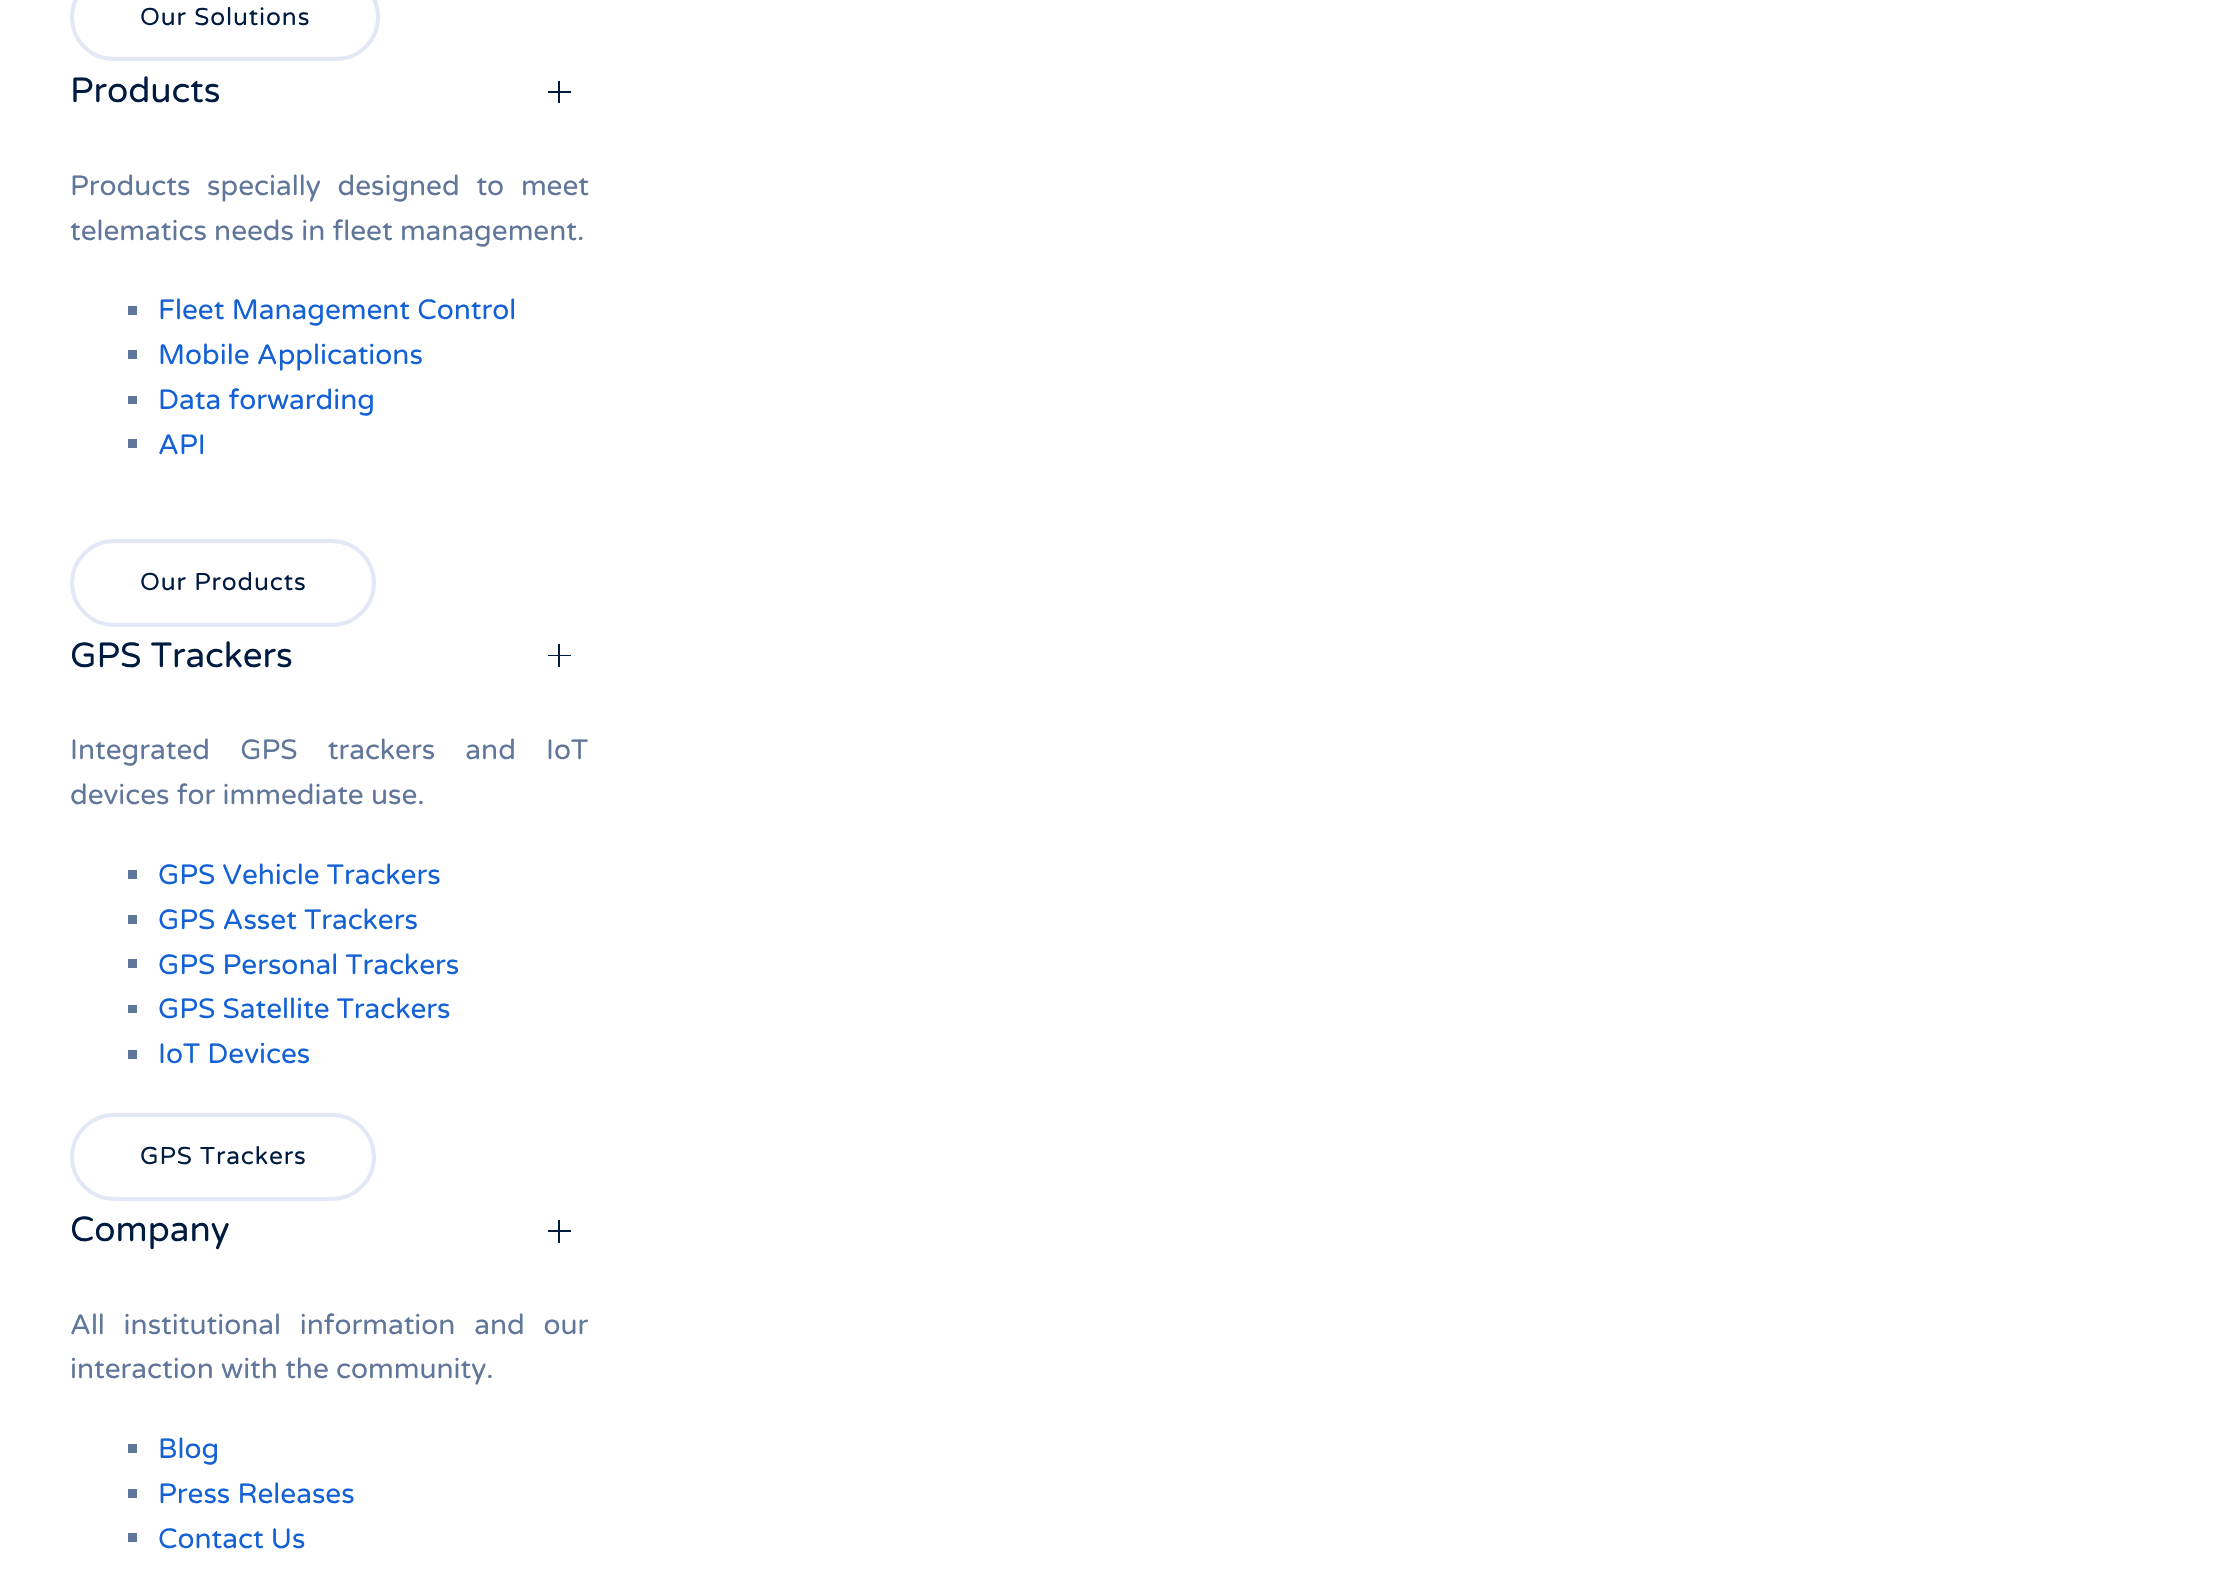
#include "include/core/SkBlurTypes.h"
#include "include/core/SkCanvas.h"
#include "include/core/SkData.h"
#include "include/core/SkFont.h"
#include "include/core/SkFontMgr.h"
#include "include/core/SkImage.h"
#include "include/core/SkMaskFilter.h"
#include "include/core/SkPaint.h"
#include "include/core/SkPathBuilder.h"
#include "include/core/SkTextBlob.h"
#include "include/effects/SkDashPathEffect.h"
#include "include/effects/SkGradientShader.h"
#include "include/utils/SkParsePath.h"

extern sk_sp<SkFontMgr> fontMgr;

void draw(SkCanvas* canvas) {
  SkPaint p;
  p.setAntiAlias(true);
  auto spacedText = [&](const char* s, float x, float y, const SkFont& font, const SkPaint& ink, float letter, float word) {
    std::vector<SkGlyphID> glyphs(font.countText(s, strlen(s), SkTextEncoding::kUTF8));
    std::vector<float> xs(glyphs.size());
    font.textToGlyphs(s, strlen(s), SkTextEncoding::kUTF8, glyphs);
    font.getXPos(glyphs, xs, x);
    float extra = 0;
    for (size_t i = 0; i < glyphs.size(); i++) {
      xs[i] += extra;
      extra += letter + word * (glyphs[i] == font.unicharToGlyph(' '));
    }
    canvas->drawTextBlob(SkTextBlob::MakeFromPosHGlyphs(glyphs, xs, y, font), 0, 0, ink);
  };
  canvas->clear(SK_ColorWHITE);
  p.setStyle(SkPaint::kStroke_Style);
  p.setStrokeWidth(4);
  p.setColor(SkColorSetRGB(226, 232, 246));
  canvas->drawRoundRect(SkRect::MakeLTRB(72, -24, 378, 59), 41.5f, 41.5f, p);
  p.setStyle(SkPaint::kFill_Style);
  p.setColor(SkColorSetRGB(0, 27, 64));
  canvas->drawRect(SkRect::MakeLTRB(548, 91, 571, 93), p);
  canvas->drawRect(SkRect::MakeLTRB(558, 81, 560, 103), p);
  p.setColor(SkColorSetRGB(96, 118, 154));
  canvas->drawRect(SkRect::MakeLTRB(128, 306, 137, 315), p);
  canvas->drawRect(SkRect::MakeLTRB(128, 350, 137, 359), p);
  canvas->drawRect(SkRect::MakeLTRB(128, 396, 137, 404), p);
  canvas->drawRect(SkRect::MakeLTRB(128, 439, 137, 448), p);
  p.setStyle(SkPaint::kStroke_Style);
  p.setColor(SkColorSetRGB(226, 232, 246));
  canvas->drawRoundRect(SkRect::MakeLTRB(72, 541, 374, 625), 42, 42, p);
  p.setStyle(SkPaint::kFill_Style);
  p.setColor(SkColorSetRGB(0, 27, 64));
  canvas->drawRect(SkRect::MakeLTRB(548, 655, 571, 656), p);
  canvas->drawRect(SkRect::MakeLTRB(558, 644, 560, 667), p);
  p.setColor(SkColorSetRGB(96, 118, 154));
  canvas->drawRect(SkRect::MakeLTRB(128, 870, 137, 879), p);
  canvas->drawRect(SkRect::MakeLTRB(128, 915, 137, 924), p);
  canvas->drawRect(SkRect::MakeLTRB(128, 959, 137, 968), p);
  canvas->drawRect(SkRect::MakeLTRB(128, 1005, 137, 1013), p);
  canvas->drawRect(SkRect::MakeLTRB(128, 1050, 137, 1059), p);
  p.setStyle(SkPaint::kStroke_Style);
  p.setColor(SkColorSetRGB(226, 232, 246));
  canvas->drawRoundRect(SkRect::MakeLTRB(72, 1115, 374, 1199), 42, 42, p);
  p.setStyle(SkPaint::kFill_Style);
  p.setColor(SkColorSetRGB(0, 27, 64));
  canvas->drawRect(SkRect::MakeLTRB(548, 1230, 571, 1232), p);
  canvas->drawRect(SkRect::MakeLTRB(558, 1220, 560, 1243), p);
  p.setColor(SkColorSetRGB(96, 118, 154));
  canvas->drawRect(SkRect::MakeLTRB(128, 1444, 137, 1453), p);
  canvas->drawRect(SkRect::MakeLTRB(128, 1489, 137, 1498), p);
  canvas->drawRect(SkRect::MakeLTRB(128, 1533, 137, 1542), p);
  SkFont font1(fontMgr->matchFamilyStyle("Varela Round", SkFontStyle::Normal()), 24.5f);
  font1.setSubpixel(true);
  p.setColor(SkColorSetRGB(0, 27, 64));
  spacedText("Our Solutions", 140, 25, font1, p, 0.9f, 0);
  SkFont font2(fontMgr->matchFamilyStyle("Varela Round", SkFontStyle::Normal()), 35);
  font2.setSubpixel(true);
  canvas->drawString("Products", 70, 102, font2, p);
  SkFont font3(fontMgr->matchFamilyStyle("Varela Round", SkFontStyle::Normal()), 28);
  font3.setSubpixel(true);
  p.setColor(SkColorSetRGB(96, 118, 154));
  spacedText("Products specially designed to meet", 70, 195, font3, p, 0, 9.5f);
  canvas->drawString("telematics needs in fleet management.", 70, 240, font3, p);
  p.setColor(SkColorSetRGB(19, 97, 213));
  canvas->drawString("Fleet Management Control", 158, 319, font3, p);
  canvas->drawString("Mobile Applications", 158, 364, font3, p);
  canvas->drawString("Data forwarding", 158, 409, font3, p);
  canvas->drawString("API", 158, 454, font3, p);
  p.setColor(SkColorSetRGB(0, 27, 64));
  spacedText("Our Products", 140, 590, font1, p, 0.9f, 0);
  canvas->drawString("GPS Trackers", 70, 667, font2, p);
  p.setColor(SkColorSetRGB(96, 118, 154));
  spacedText("Integrated GPS trackers and IoT", 70, 759, font3, p, 0, 23);
  canvas->drawString("devices for immediate use.", 70, 804, font3, p);
  p.setColor(SkColorSetRGB(19, 97, 213));
  canvas->drawString("GPS Vehicle Trackers", 158, 884, font3, p);
  canvas->drawString("GPS Asset Trackers", 158, 929, font3, p);
  canvas->drawString("GPS Personal Trackers", 158, 974, font3, p);
  canvas->drawString("GPS Satellite Trackers", 158, 1018, font3, p);
  canvas->drawString("IoT Devices", 158, 1063, font3, p);
  p.setColor(SkColorSetRGB(0, 27, 64));
  spacedText("GPS Trackers", 140, 1164, font1, p, 0.9f, 0);
  canvas->drawString("Company", 70, 1241, font2, p);
  p.setColor(SkColorSetRGB(96, 118, 154));
  spacedText("All institutional information and our", 70, 1334, font3, p, 0, 11.5f);
  canvas->drawString("interaction with the community.", 70, 1378, font3, p);
  p.setColor(SkColorSetRGB(19, 97, 213));
  canvas->drawString("Blog", 158, 1458, font3, p);
  canvas->drawString("Press Releases", 158, 1503, font3, p);
  canvas->drawString("Contact Us", 158, 1548, font3, p);
}
